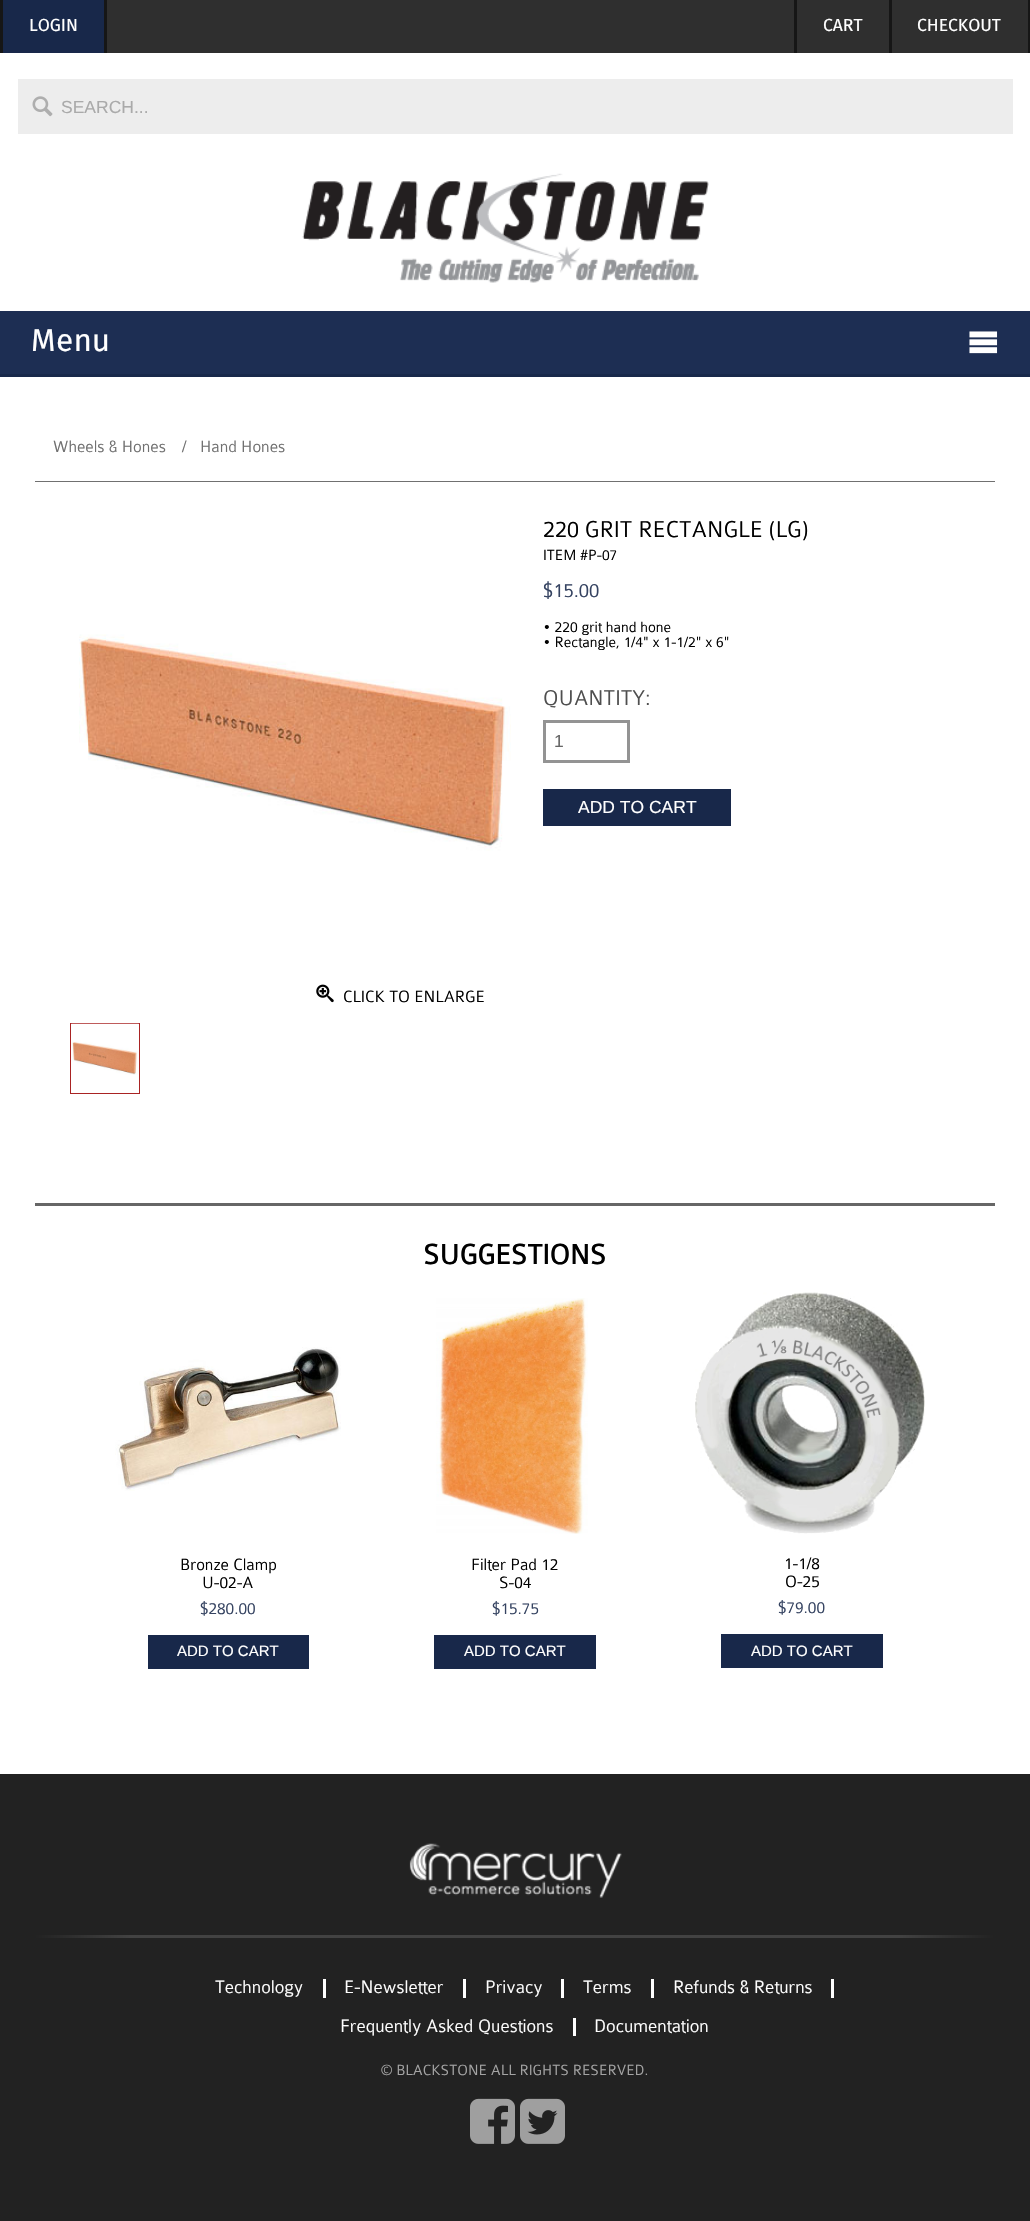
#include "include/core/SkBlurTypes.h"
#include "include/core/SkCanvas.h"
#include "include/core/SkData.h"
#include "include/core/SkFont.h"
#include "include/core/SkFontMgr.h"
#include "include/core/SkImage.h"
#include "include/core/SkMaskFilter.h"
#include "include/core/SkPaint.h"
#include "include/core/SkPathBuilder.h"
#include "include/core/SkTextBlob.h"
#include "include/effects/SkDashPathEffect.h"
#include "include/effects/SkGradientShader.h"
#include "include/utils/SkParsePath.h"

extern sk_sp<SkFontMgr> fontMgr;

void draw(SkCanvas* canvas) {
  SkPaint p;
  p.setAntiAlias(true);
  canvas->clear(SK_ColorWHITE);
  p.setColor(SkColorSetRGB(47, 47, 47));
  canvas->drawRect(SkRect::MakeLTRB(107, 0, 1028, 53), p);
  p.setColor(SkColorSetRGB(24, 40, 74));
  canvas->drawRect(SkRect::MakeLTRB(3, 0, 104, 53), p);
  p.setColor(SkColorSetRGB(22, 22, 22));
  canvas->drawRect(SkRect::MakeLTRB(104, 0, 107, 53), p);
  canvas->drawRect(SkRect::MakeLTRB(0, 0, 3, 53), p);
  canvas->drawRect(SkRect::MakeLTRB(889, 0, 892, 53), p);
  canvas->drawRect(SkRect::MakeLTRB(794, 0, 797, 53), p);
  canvas->drawRect(SkRect::MakeLTRB(1028, 0, 1030, 53), p);
  p.setColor(SkColorSetRGB(237, 237, 237));
  canvas->drawRect(SkRect::MakeLTRB(18, 79, 1013, 134), p);
  canvas->drawImageRect(SkImages::DeferredFromEncodedData(SkData::MakeFromFileName("images/1.png")), SkRect::MakeLTRB(32, 96, 53, 117), SkSamplingOptions());
  canvas->drawImageRect(SkImages::DeferredFromEncodedData(SkData::MakeFromFileName("images/2.png")), SkRect::MakeLTRB(302, 173, 709, 283), SkSamplingOptions());
  p.setColor(SkColorSetRGB(24, 40, 74));
  canvas->drawRect(SkRect::MakeLTRB(0, 374, 1030, 377), p);
  p.setColor(SkColorSetRGB(29, 46, 83));
  canvas->drawRect(SkRect::MakeLTRB(0, 311, 1030, 374), p);
  canvas->drawImageRect(SkImages::DeferredFromEncodedData(SkData::MakeFromFileName("images/3.png")), SkRect::MakeLTRB(969, 331, 998, 354), SkSamplingOptions());
  p.setColor(SkColorSetRGB(112, 112, 112));
  canvas->drawRect(SkRect::MakeLTRB(35, 481, 995, 482), p);
  p.setStyle(SkPaint::kStroke_Style);
  p.setStrokeWidth(3);
  p.setColor(SkColorSetRGB(147, 147, 147));
  canvas->drawRect(SkRect::MakeLTRB(544.5f, 721.5f, 628.5f, 761.5f), p);
  p.setStyle(SkPaint::kFill_Style);
  p.setColor(SkColorSetRGB(24, 40, 74));
  canvas->drawRect(SkRect::MakeLTRB(543, 789, 731, 826), p);
  canvas->drawImageRect(SkImages::DeferredFromEncodedData(SkData::MakeFromFileName("images/4.png")), SkRect::MakeLTRB(79, 634, 511, 851), SkSamplingOptions());
  canvas->drawImageRect(SkImages::DeferredFromEncodedData(SkData::MakeFromFileName("images/5.png")), SkRect::MakeLTRB(316, 984, 334, 1003), SkSamplingOptions());
  p.setStyle(SkPaint::kStroke_Style);
  p.setStrokeWidth(1);
  p.setColor(SkColorSetRGB(169, 35, 35));
  canvas->drawRect(SkRect::MakeLTRB(70.5f, 1023.5f, 139.5f, 1093.5f), p);
  canvas->drawImageRect(SkImages::DeferredFromEncodedData(SkData::MakeFromFileName("images/6.png")), SkRect::MakeLTRB(71, 1023, 139, 1075), SkSamplingOptions());
  p.setStyle(SkPaint::kFill_Style);
  p.setColor(SkColorSetRGB(102, 102, 102));
  canvas->drawRect(SkRect::MakeLTRB(35, 1203, 995, 1206), p);
  canvas->drawImageRect(SkImages::DeferredFromEncodedData(SkData::MakeFromFileName("images/7.png")), SkRect::MakeLTRB(115, 1347, 341, 1491), SkSamplingOptions());
  p.setColor(SkColorSetRGB(24, 40, 74));
  canvas->drawRect(SkRect::MakeLTRB(148, 1635, 309, 1669), p);
  canvas->drawImageRect(SkImages::DeferredFromEncodedData(SkData::MakeFromFileName("images/8.png")), SkRect::MakeLTRB(436, 1298, 588, 1534), SkSamplingOptions());
  canvas->drawRect(SkRect::MakeLTRB(434, 1635, 596, 1669), p);
  canvas->drawImageRect(SkImages::DeferredFromEncodedData(SkData::MakeFromFileName("images/9.png")), SkRect::MakeLTRB(695, 1292, 925, 1534), SkSamplingOptions());
  canvas->drawRect(SkRect::MakeLTRB(721, 1634, 883, 1668), p);
  p.setColor(SkColorSetRGB(34, 34, 34));
  canvas->drawRect(SkRect::MakeLTRB(0, 1774, 1030, 2221), p);
  canvas->drawImageRect(SkImages::DeferredFromEncodedData(SkData::MakeFromFileName("images/10.png")), SkRect::MakeLTRB(409, 1843, 622, 1898), SkSamplingOptions());
  {
    const SkColor colors[] = {SkColorSetRGB(34, 34, 34), SkColorSetRGB(66, 66, 66), SkColorSetRGB(66, 66, 66), SkColorSetRGB(34, 34, 34)};
    const float stops[] = {0, 0.1f, 0.9f, 1};
    const SkPoint ends[] = {{35, 1936}, {995, 1936}};
    p.setShader(SkGradientShader::MakeLinear(ends, colors, stops, 4, SkTileMode::kClamp));
    p.setAlpha(255);
  }
  canvas->drawRect(SkRect::MakeLTRB(35, 1935, 995, 1938), p);
  p.setShader(nullptr);
  p.setColor(SK_ColorWHITE);
  canvas->drawRect(SkRect::MakeLTRB(323, 1979, 326, 1998), p);
  canvas->drawRect(SkRect::MakeLTRB(463, 1979, 466, 1998), p);
  canvas->drawRect(SkRect::MakeLTRB(561, 1979, 564, 1998), p);
  canvas->drawRect(SkRect::MakeLTRB(651, 1979, 654, 1998), p);
  canvas->drawRect(SkRect::MakeLTRB(831, 1979, 834, 1998), p);
  canvas->drawRect(SkRect::MakeLTRB(573, 2018, 576, 2036), p);
  canvas->drawImageRect(SkImages::DeferredFromEncodedData(SkData::MakeFromFileName("images/11.png")), SkRect::MakeLTRB(470, 2098, 515, 2144), SkSamplingOptions());
  canvas->drawImageRect(SkImages::DeferredFromEncodedData(SkData::MakeFromFileName("images/12.png")), SkRect::MakeLTRB(520, 2098, 565, 2144), SkSamplingOptions());
  SkFont font1(fontMgr->matchFamilyStyle("Fira Sans", SkFontStyle::Normal()), 17.5f);
  font1.setSubpixel(true);
  canvas->drawString("LOGIN", 29, 31, font1, p);
  canvas->drawString("CART", 823, 31, font1, p);
  canvas->drawString("CHECKOUT", 917, 31, font1, p);
  SkFont font2(fontMgr->matchFamilyStyle("Liberation Sans", SkFontStyle::Normal()), 17.5f);
  font2.setSubpixel(true);
  p.setColor(SkColorSetRGB(170, 170, 170));
  canvas->drawString("SEARCH...", 61, 113, font2, p);
  SkFont font3(fontMgr->matchFamilyStyle("Fira Sans", SkFontStyle::Normal()), 31.5f);
  font3.setSubpixel(true);
  p.setColor(SK_ColorWHITE);
  canvas->drawString("Menu", 31, 351, font3, p);
  SkFont font4(fontMgr->matchFamilyStyle("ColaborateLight", SkFontStyle(300, SkFontStyle::kNormal_Width, SkFontStyle::kUpright_Slant)), 17.5f);
  font4.setSubpixel(true);
  p.setColor(SkColorSetRGB(112, 112, 112));
  canvas->drawString("Wheels & Hones", 53, 452, font4, p);
  canvas->drawString("/", 182, 452, font4, p);
  canvas->drawString("Hand Hones", 200, 452, font4, p);
  SkFont font5(fontMgr->matchFamilyStyle("ColaborateLight", SkFontStyle(300, SkFontStyle::kNormal_Width, SkFontStyle::kUpright_Slant)), 24.5f);
  font5.setSubpixel(true);
  p.setColor(SK_ColorBLACK);
  canvas->drawString("220 GRIT RECTANGLE (LG)", 543, 537, font5, p);
  SkFont font6(fontMgr->matchFamilyStyle("ColaborateLight", SkFontStyle(300, SkFontStyle::kNormal_Width, SkFontStyle::kUpright_Slant)), 15.75f);
  font6.setSubpixel(true);
  canvas->drawString("ITEM #P-07", 543, 560, font6, p);
  SkFont font7(fontMgr->matchFamilyStyle("ColaborateLight", SkFontStyle(300, SkFontStyle::kNormal_Width, SkFontStyle::kUpright_Slant)), 21);
  font7.setSubpixel(true);
  p.setColor(SkColorSetRGB(53, 67, 97));
  canvas->drawString("$15.00", 543, 597, font7, p);
  p.setColor(SK_ColorBLACK);
  canvas->drawString("• 220 grit hand hone", 543, 632, font6, p);
  canvas->drawString("• Rectangle, 1/4\" x 1-1/2\" x 6\"", 543, 647, font6, p);
  SkFont font8(fontMgr->matchFamilyStyle("ColaborateLight", SkFontStyle(300, SkFontStyle::kNormal_Width, SkFontStyle::kUpright_Slant)), 22.75f);
  font8.setSubpixel(true);
  p.setColor(SkColorSetRGB(79, 79, 79));
  canvas->drawString("QUANTITY:", 543, 705, font8, p);
  p.setColor(SkColorSetRGB(102, 102, 102));
  canvas->drawString("1", 554, 747, font2, p);
  p.setColor(SK_ColorWHITE);
  canvas->drawString("ADD TO CART", 578, 813, font2, p);
  p.setColor(SK_ColorBLACK);
  canvas->drawString("CLICK TO ENLARGE", 343, 1002, font4, p);
  SkFont font9(fontMgr->matchFamilyStyle("ColaborateLight", SkFontStyle::Bold()), 29.75f);
  font9.setSubpixel(true);
  canvas->drawString("SUGGESTIONS", 423, 1264, font9, p);
  canvas->drawString("Bronze Clamp", 180, 1570, font4, p);
  canvas->drawString("U-02-A", 202, 1588, font4, p);
  p.setColor(SkColorSetRGB(53, 67, 97));
  canvas->drawString("$280.00", 200, 1614, font4, p);
  SkFont font10(fontMgr->matchFamilyStyle("Liberation Sans", SkFontStyle::Normal()), 15);
  font10.setSubpixel(true);
  p.setColor(SK_ColorWHITE);
  canvas->drawString("ADD TO CART", 177, 1656, font10, p);
  p.setColor(SK_ColorBLACK);
  canvas->drawString("Filter Pad 12", 471, 1570, font4, p);
  canvas->drawString("S-04", 499, 1588, font4, p);
  p.setColor(SkColorSetRGB(53, 67, 97));
  canvas->drawString("$15.75", 492, 1614, font4, p);
  p.setColor(SK_ColorWHITE);
  canvas->drawString("ADD TO CART", 464, 1656, font10, p);
  p.setColor(SK_ColorBLACK);
  canvas->drawString("1-1/8", 784, 1569, font4, p);
  canvas->drawString("O-25", 785, 1587, font4, p);
  p.setColor(SkColorSetRGB(53, 67, 97));
  canvas->drawString("$79.00", 778, 1613, font4, p);
  p.setColor(SK_ColorWHITE);
  canvas->drawString("ADD TO CART", 751, 1656, font10, p);
  SkFont font11(fontMgr->matchFamilyStyle("ColaborateLight", SkFontStyle(300, SkFontStyle::kNormal_Width, SkFontStyle::kUpright_Slant)), 19.25f);
  font11.setSubpixel(true);
  canvas->drawString("Technology", 215, 1993, font11, p);
  canvas->drawString("E-Newsletter", 344, 1993, font11, p);
  canvas->drawString("Privacy", 485, 1993, font11, p);
  canvas->drawString("Terms", 583, 1993, font11, p);
  canvas->drawString("Refunds & Returns", 673, 1993, font11, p);
  canvas->drawString("Frequently Asked Questions", 340, 2032, font11, p);
  canvas->drawString("Documentation", 594, 2032, font11, p);
  p.setColor(SkColorSetRGB(164, 164, 164));
  canvas->drawString("© BLACKSTONE ALL RIGHTS RESERVED.", 381, 2075, font6, p);
}
